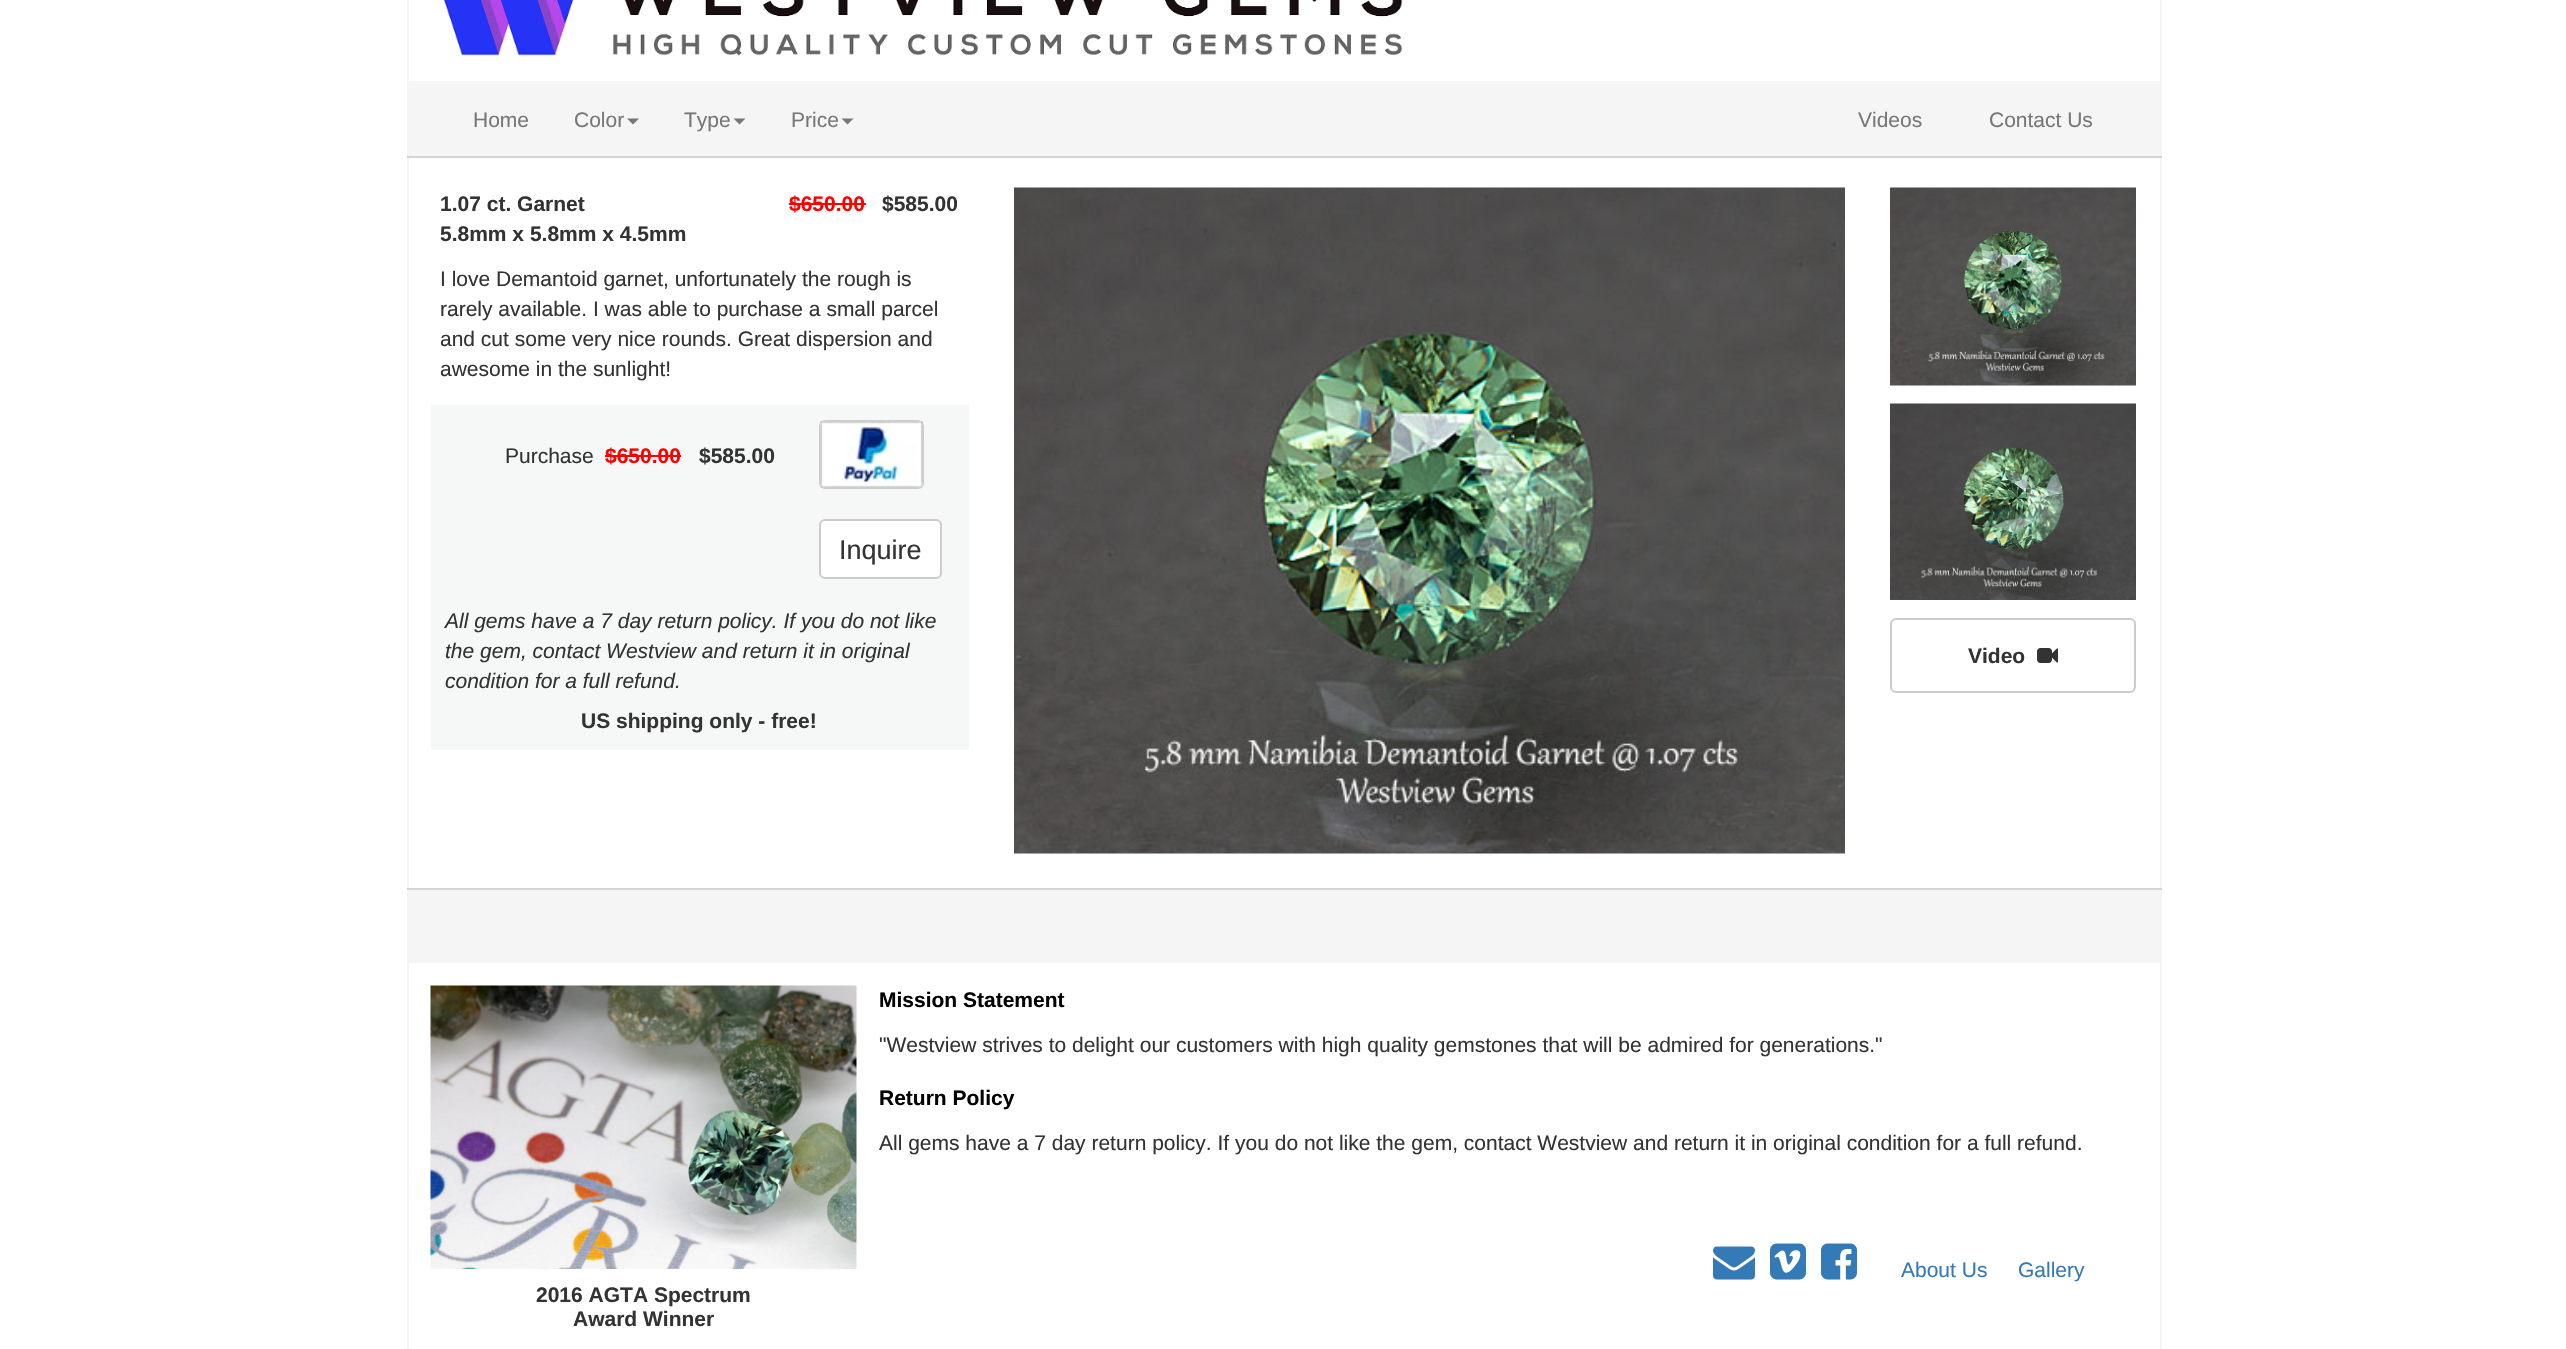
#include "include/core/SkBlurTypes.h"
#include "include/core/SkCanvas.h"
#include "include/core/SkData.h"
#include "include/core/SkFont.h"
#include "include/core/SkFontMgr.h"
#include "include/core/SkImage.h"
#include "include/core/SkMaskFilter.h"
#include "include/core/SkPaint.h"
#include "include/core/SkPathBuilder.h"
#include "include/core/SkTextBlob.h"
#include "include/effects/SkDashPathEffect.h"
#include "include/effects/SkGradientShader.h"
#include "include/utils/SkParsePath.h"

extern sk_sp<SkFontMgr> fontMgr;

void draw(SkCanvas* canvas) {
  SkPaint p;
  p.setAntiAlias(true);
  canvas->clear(SK_ColorWHITE);
  p.setColor(SkColorSetRGB(245, 245, 245));
  canvas->drawRect(SkRect::MakeLTRB(2160, 0, 2162, 81), p);
  canvas->drawRect(SkRect::MakeLTRB(407, 0, 409, 81), p);
  canvas->drawImageRect(SkImages::DeferredFromEncodedData(SkData::MakeFromFileName("images/1.png")), SkRect::MakeLTRB(444, 0, 1403, 57), SkSamplingOptions());
  canvas->drawRect(SkRect::MakeLTRB(407, 81, 2162, 156), p);
  p.setColor(SkColorSetRGB(211, 211, 211));
  canvas->drawRect(SkRect::MakeLTRB(407, 156, 2162, 158), p);
  p.setColor(SkColorSetRGB(119, 119, 119));
  canvas->drawPath(SkPathBuilder().moveTo(627, 118.5f).lineTo(639, 118.5f).lineTo(633, 124.5f).close().detach(), p);
  canvas->drawPath(SkPathBuilder().moveTo(733.5f, 118.5f).lineTo(745.5f, 118.5f).lineTo(739.5f, 124.5f).close().detach(), p);
  canvas->drawPath(SkPathBuilder().moveTo(841.5f, 118.5f).lineTo(853.5f, 118.5f).lineTo(847.5f, 124.5f).close().detach(), p);
  p.setColor(SkColorSetRGB(245, 245, 245));
  canvas->drawRect(SkRect::MakeLTRB(2160, 158, 2162, 888), p);
  canvas->drawRect(SkRect::MakeLTRB(407, 158, 409, 888), p);
  p.setColor(SkColorSetRGB(255, 0, 0));
  canvas->drawRect(SkRect::MakeLTRB(789, 203, 866, 205), p);
  p.setColor(SkColorSetRGB(246, 247, 247));
  canvas->drawRect(SkRect::MakeLTRB(431, 405, 969, 750), p);
  p.setColor(SkColorSetRGB(255, 0, 0));
  canvas->drawRect(SkRect::MakeLTRB(605, 455, 681, 457), p);
  p.setStyle(SkPaint::kStroke_Style);
  p.setStrokeWidth(2);
  p.setColor(SkColorSetRGB(204, 204, 204));
  canvas->drawRoundRect(SkRect::MakeLTRB(820, 421, 923, 488), 5, 5, p);
  canvas->drawImageRect(SkImages::DeferredFromEncodedData(SkData::MakeFromFileName("images/2.png")), SkRect::MakeLTRB(820, 421, 923, 488), SkSamplingOptions());
  p.setStyle(SkPaint::kFill_Style);
  p.setColor(SK_ColorWHITE);
  canvas->drawRoundRect(SkRect::MakeLTRB(820, 520, 941, 578), 5, 5, p);
  p.setStyle(SkPaint::kStroke_Style);
  p.setColor(SkColorSetRGB(204, 204, 204));
  canvas->drawRoundRect(SkRect::MakeLTRB(820, 520, 941, 578), 5, 5, p);
  canvas->drawImageRect(SkImages::DeferredFromEncodedData(SkData::MakeFromFileName("images/3.png")), SkRect::MakeLTRB(1014, 187, 1845, 854), SkSamplingOptions());
  canvas->drawImageRect(SkImages::DeferredFromEncodedData(SkData::MakeFromFileName("images/4.png")), SkRect::MakeLTRB(1890, 187, 2136, 386), SkSamplingOptions());
  canvas->drawImageRect(SkImages::DeferredFromEncodedData(SkData::MakeFromFileName("images/5.png")), SkRect::MakeLTRB(1890, 403, 2136, 600), SkSamplingOptions());
  canvas->drawRoundRect(SkRect::MakeLTRB(1891, 619, 2135, 692), 5, 5, p);
  canvas->drawImageRect(SkImages::DeferredFromEncodedData(SkData::MakeFromFileName("images/6.png")), SkRect::MakeLTRB(2037, 648, 2058, 663), SkSamplingOptions());
  p.setStyle(SkPaint::kFill_Style);
  p.setColor(SkColorSetRGB(245, 245, 245));
  canvas->drawRect(SkRect::MakeLTRB(407, 890, 2162, 963), p);
  p.setColor(SkColorSetRGB(211, 211, 211));
  canvas->drawRect(SkRect::MakeLTRB(407, 888, 2162, 890), p);
  p.setColor(SkColorSetRGB(245, 245, 245));
  canvas->drawRect(SkRect::MakeLTRB(2160, 963, 2162, 1349), p);
  canvas->drawRect(SkRect::MakeLTRB(407, 963, 409, 1349), p);
  canvas->drawImageRect(SkImages::DeferredFromEncodedData(SkData::MakeFromFileName("images/7.png")), SkRect::MakeLTRB(1713, 1246, 1755, 1280), SkSamplingOptions());
  canvas->drawImageRect(SkImages::DeferredFromEncodedData(SkData::MakeFromFileName("images/8.png")), SkRect::MakeLTRB(1770, 1243, 1806, 1280), SkSamplingOptions());
  canvas->drawImageRect(SkImages::DeferredFromEncodedData(SkData::MakeFromFileName("images/9.png")), SkRect::MakeLTRB(1821, 1243, 1857, 1280), SkSamplingOptions());
  canvas->drawImageRect(SkImages::DeferredFromEncodedData(SkData::MakeFromFileName("images/10.png")), SkRect::MakeLTRB(430, 985, 857, 1269), SkSamplingOptions());
  SkFont font1(fontMgr->matchFamilyStyle("Liberation Sans", SkFontStyle::Normal()), 21);
  font1.setSubpixel(true);
  p.setColor(SkColorSetRGB(119, 119, 119));
  canvas->drawString("Home", 473, 127, font1, p);
  canvas->drawString("Color", 574, 127, font1, p);
  canvas->drawString("Type", 684, 127, font1, p);
  canvas->drawString("Price", 791, 127, font1, p);
  canvas->drawString("Videos", 1858, 127, font1, p);
  canvas->drawString("Contact Us", 1989, 127, font1, p);
  SkFont font2(fontMgr->matchFamilyStyle("Liberation Sans", SkFontStyle::Bold()), 21);
  font2.setSubpixel(true);
  p.setColor(SkColorSetRGB(51, 51, 51));
  canvas->drawString("1.07 ct. Garnet", 440, 211, font2, p);
  p.setColor(SkColorSetRGB(255, 0, 0));
  canvas->drawString("$650.00", 789, 211, font2, p);
  p.setColor(SkColorSetRGB(51, 51, 51));
  canvas->drawString("$585.00", 882, 211, font2, p);
  canvas->drawString("5.8mm x 5.8mm x 4.5mm", 440, 241, font2, p);
  canvas->drawString("I love Demantoid garnet, unfortunately the rough is", 440, 286, font1, p);
  canvas->drawString("rarely available. I was able to purchase a small parcel", 440, 316, font1, p);
  canvas->drawString("and cut some very nice rounds. Great dispersion and", 440, 346, font1, p);
  canvas->drawString("awesome in the sunlight!", 440, 376, font1, p);
  canvas->drawString("Purchase", 505, 463, font1, p);
  p.setColor(SkColorSetRGB(255, 0, 0));
  canvas->drawString("$650.00", 605, 463, font2, p);
  p.setColor(SkColorSetRGB(51, 51, 51));
  canvas->drawString("$585.00", 699, 463, font2, p);
  SkFont font3(fontMgr->matchFamilyStyle("Liberation Sans", SkFontStyle::Normal()), 27);
  font3.setSubpixel(true);
  canvas->drawString("Inquire", 839, 559, font3, p);
  SkFont font4(fontMgr->matchFamilyStyle("Liberation Sans", SkFontStyle::Italic()), 21);
  font4.setSubpixel(true);
  canvas->drawString("All gems have a 7 day return policy. If you do not like", 445, 628, font4, p);
  canvas->drawString("the gem, contact Westview and return it in original", 445, 658, font4, p);
  canvas->drawString("condition for a full refund.", 445, 688, font4, p);
  canvas->drawString("US shipping only - free!", 581, 728, font2, p);
  canvas->drawString("Video", 1968, 663, font2, p);
  p.setColor(SK_ColorBLACK);
  canvas->drawString("Mission Statement", 879, 1007, font2, p);
  p.setColor(SkColorSetRGB(51, 51, 51));
  canvas->drawString("\"Westview strives to delight our customers with high quality gemstones that will be admired for generations.\"", 879, 1052, font1, p);
  p.setColor(SK_ColorBLACK);
  canvas->drawString("Return Policy", 879, 1105, font2, p);
  p.setColor(SkColorSetRGB(51, 51, 51));
  canvas->drawString("All gems have a 7 day return policy. If you do not like the gem, contact Westview and return it in original condition for a full refund.", 879, 1150, font1, p);
  p.setColor(SkColorSetRGB(51, 122, 183));
  canvas->drawString("About Us", 1901, 1277, font1, p);
  canvas->drawString("Gallery", 2018, 1277, font1, p);
  p.setColor(SkColorSetRGB(51, 51, 51));
  canvas->drawString("2016 AGTA Spectrum", 536, 1302, font2, p);
  canvas->drawString("Award Winner", 573, 1326, font2, p);
}
